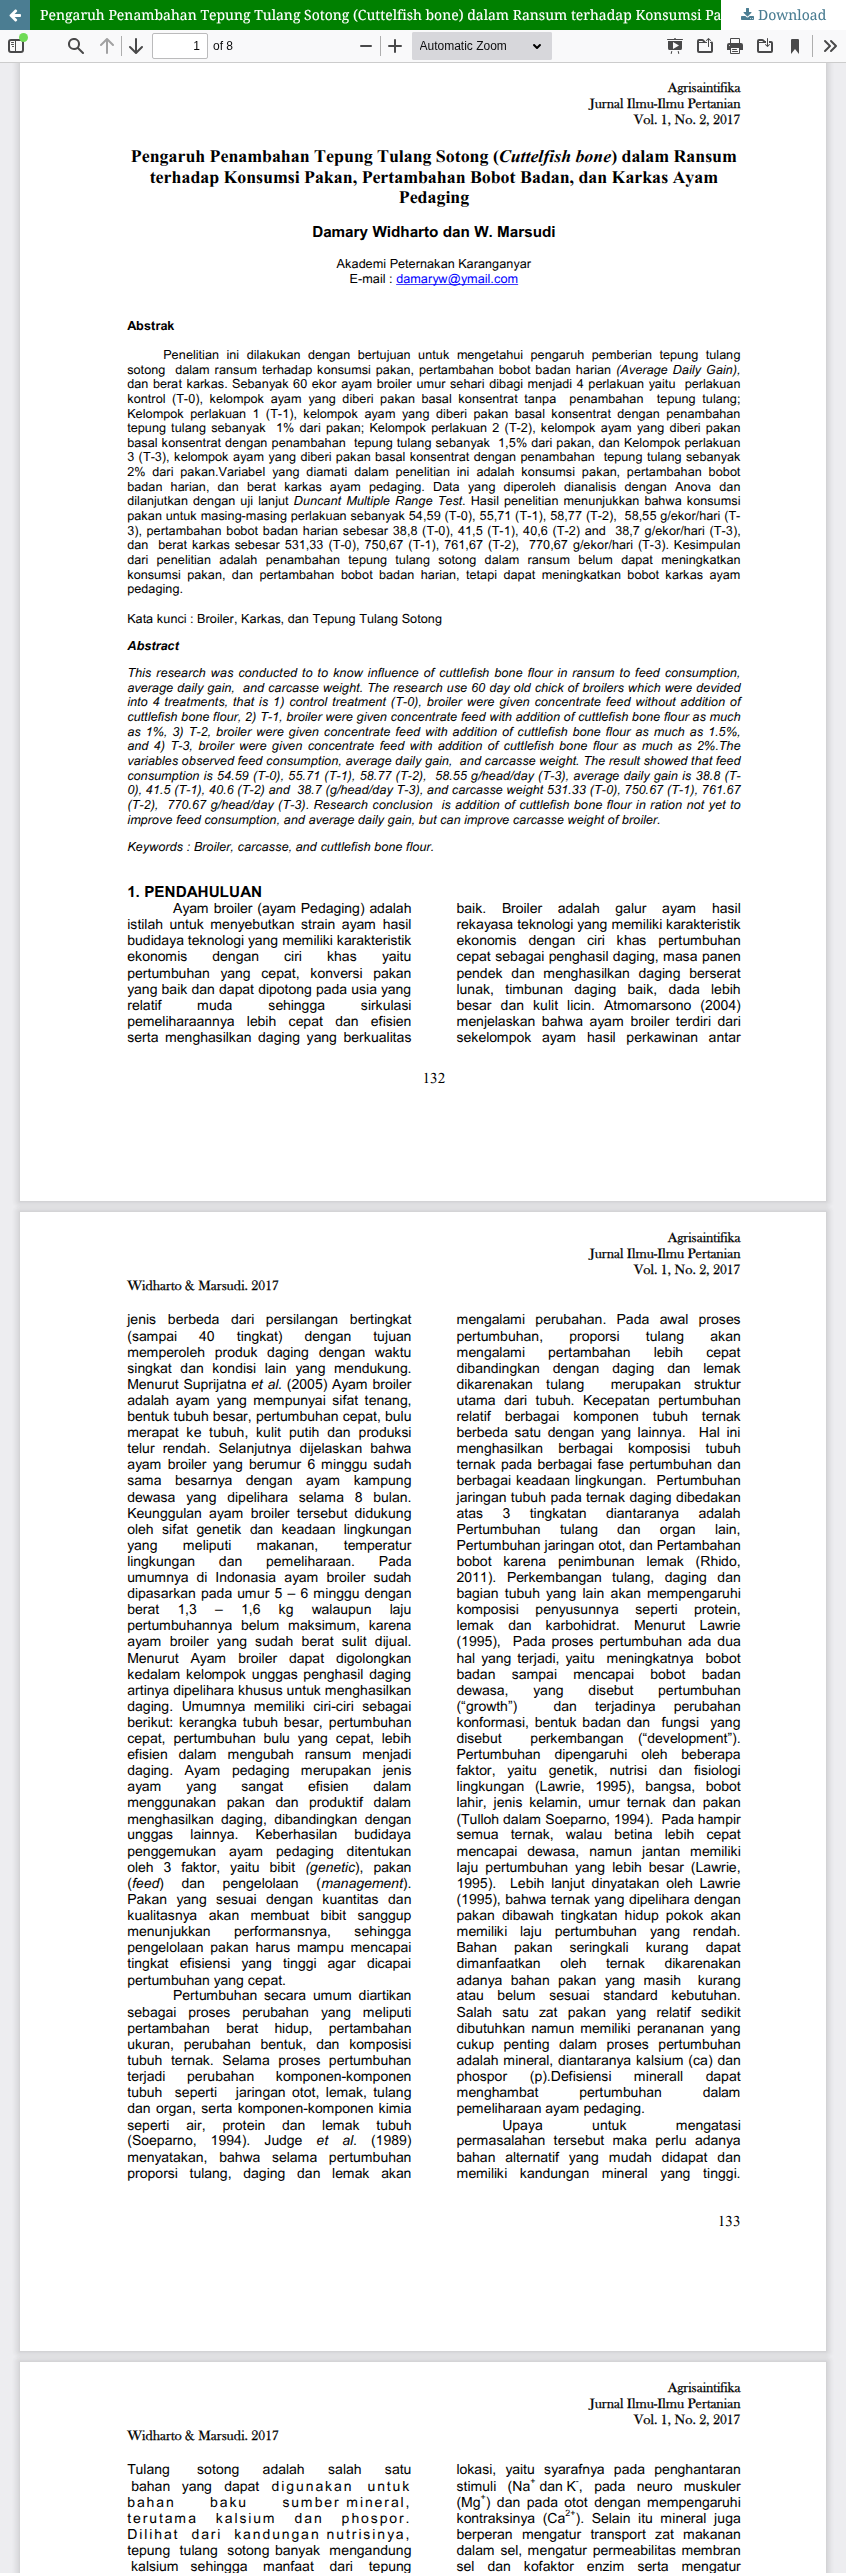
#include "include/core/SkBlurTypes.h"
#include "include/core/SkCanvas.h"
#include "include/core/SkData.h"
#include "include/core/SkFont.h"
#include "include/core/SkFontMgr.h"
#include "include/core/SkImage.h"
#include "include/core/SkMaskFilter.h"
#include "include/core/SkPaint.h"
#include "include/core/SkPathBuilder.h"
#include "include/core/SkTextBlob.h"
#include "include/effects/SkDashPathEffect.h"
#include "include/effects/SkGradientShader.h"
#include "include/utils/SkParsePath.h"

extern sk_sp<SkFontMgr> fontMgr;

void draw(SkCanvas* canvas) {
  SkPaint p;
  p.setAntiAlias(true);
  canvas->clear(SK_ColorWHITE);
  p.setColor(SkColorSetRGB(0, 128, 0));
  canvas->drawRect(SkRect::MakeLTRB(30, 0, 721, 30), p);
  p.setColor(SkColorSetRGB(75, 125, 146));
  canvas->drawRect(SkRect::MakeLTRB(0, 0, 30, 30), p);
  canvas->drawImageRect(SkImages::DeferredFromEncodedData(SkData::MakeFromFileName("images/1.png")), SkRect::MakeLTRB(9, 9, 21, 22), SkSamplingOptions());
  canvas->drawImageRect(SkImages::DeferredFromEncodedData(SkData::MakeFromFileName("images/2.png")), SkRect::MakeLTRB(741, 8, 754, 20), SkSamplingOptions());
  canvas->drawImageRect(SkImages::DeferredFromEncodedData(SkData::MakeFromFileName("images/3.png")), SkRect::MakeLTRB(0, 30, 846, 2573), SkSamplingOptions());
  SkFont font1(fontMgr->matchFamilyStyle("Noto Serif", SkFontStyle::Normal()), 14);
  font1.setSubpixel(true);
  p.setColor(SK_ColorWHITE);
  canvas->drawString("Pengaruh Penambahan Tepung Tulang Sotong (Cuttelfish bone) dalam Ransum terhadap Konsumsi Pa", 40, 20, font1, p);
  p.setColor(SkColorSetRGB(75, 125, 146));
  canvas->drawString("Download", 758, 20, font1, p);
}
